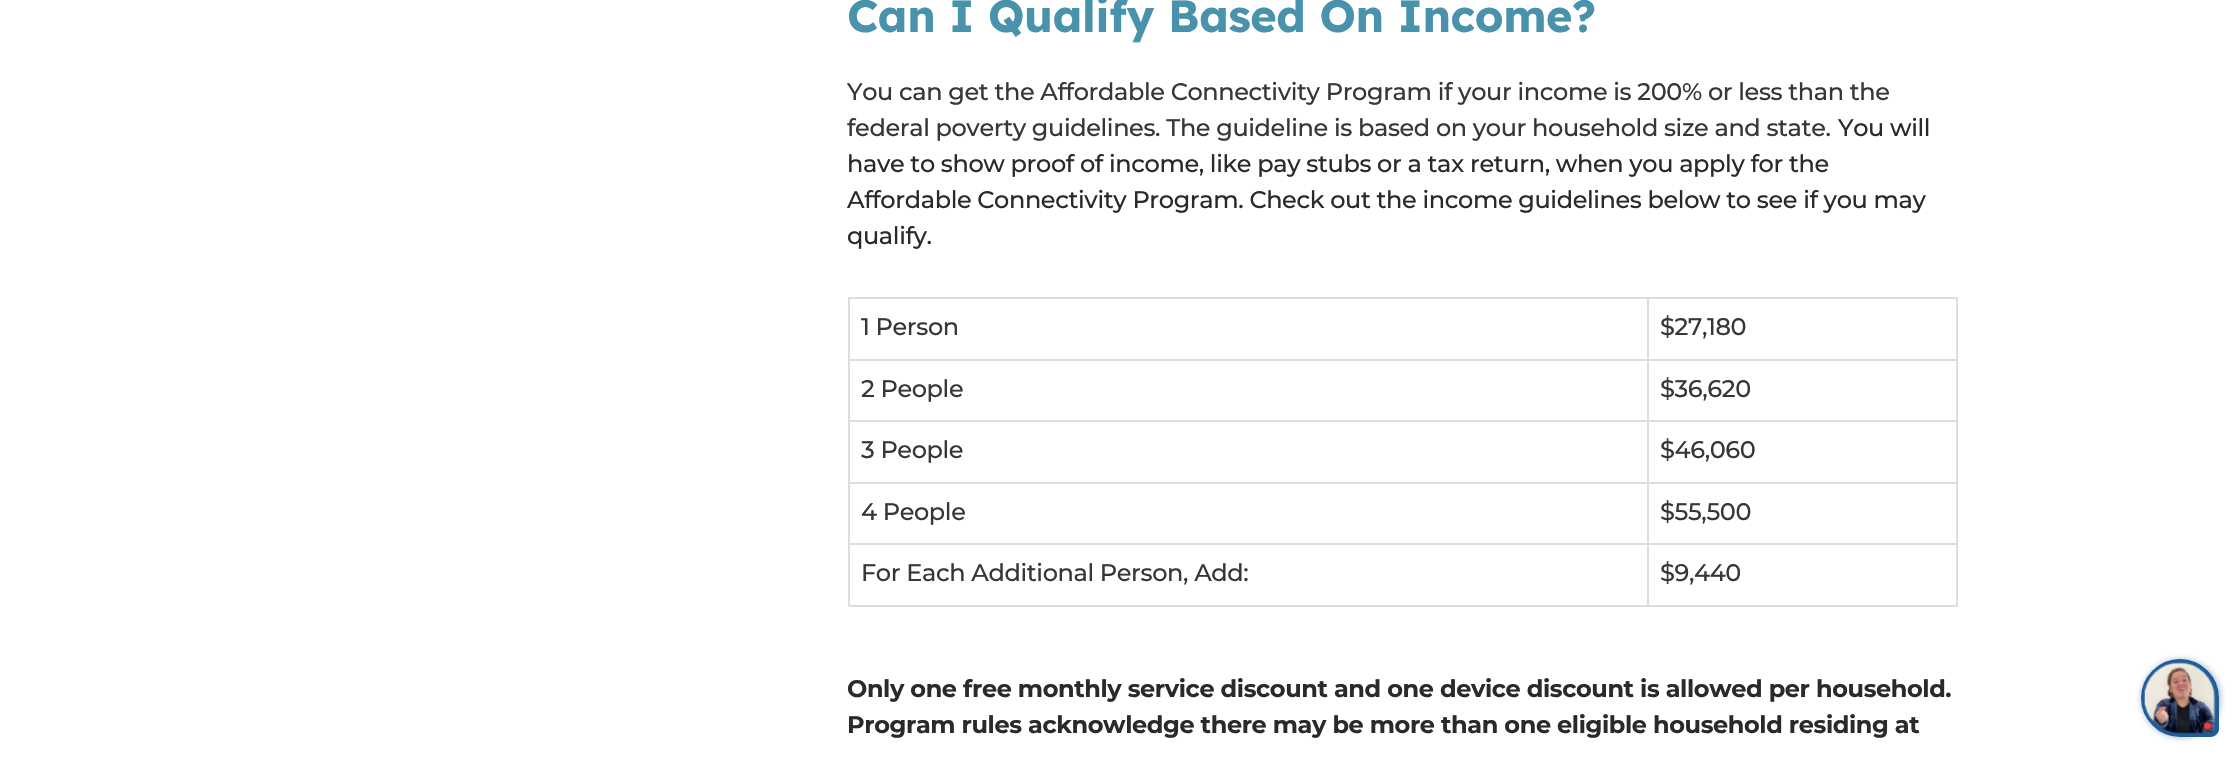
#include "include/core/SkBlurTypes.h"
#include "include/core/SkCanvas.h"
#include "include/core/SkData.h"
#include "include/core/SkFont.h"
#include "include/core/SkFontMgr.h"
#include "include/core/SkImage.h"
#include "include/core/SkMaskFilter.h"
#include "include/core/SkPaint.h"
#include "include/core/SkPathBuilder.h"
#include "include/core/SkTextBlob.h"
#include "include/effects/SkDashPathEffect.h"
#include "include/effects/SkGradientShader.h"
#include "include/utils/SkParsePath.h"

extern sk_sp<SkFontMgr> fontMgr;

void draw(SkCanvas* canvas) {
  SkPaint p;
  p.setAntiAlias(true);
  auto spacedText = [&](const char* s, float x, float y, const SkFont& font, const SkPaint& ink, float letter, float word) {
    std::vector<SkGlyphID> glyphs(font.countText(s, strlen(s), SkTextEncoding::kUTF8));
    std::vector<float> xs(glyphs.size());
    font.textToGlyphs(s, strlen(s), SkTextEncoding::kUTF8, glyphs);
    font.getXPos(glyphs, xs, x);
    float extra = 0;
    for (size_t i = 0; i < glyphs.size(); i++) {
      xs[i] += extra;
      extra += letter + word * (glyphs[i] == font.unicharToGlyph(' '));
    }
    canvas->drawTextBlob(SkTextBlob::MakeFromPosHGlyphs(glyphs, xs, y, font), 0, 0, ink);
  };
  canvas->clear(SK_ColorWHITE);
  p.setColor(SkColorSetRGB(221, 221, 221));
  canvas->drawRect(SkRect::MakeLTRB(848, 297, 1958, 299), p);
  canvas->drawRect(SkRect::MakeLTRB(848, 297, 850, 606), p);
  canvas->drawRect(SkRect::MakeLTRB(1647, 299, 1649, 360), p);
  canvas->drawRect(SkRect::MakeLTRB(849, 359, 1649, 361), p);
  canvas->drawRect(SkRect::MakeLTRB(1956, 299, 1958, 360), p);
  canvas->drawRect(SkRect::MakeLTRB(1649, 359, 1958, 361), p);
  canvas->drawRect(SkRect::MakeLTRB(1647, 360, 1649, 483), p);
  canvas->drawRect(SkRect::MakeLTRB(849, 420, 1649, 422), p);
  canvas->drawRect(SkRect::MakeLTRB(1956, 360, 1958, 483), p);
  canvas->drawRect(SkRect::MakeLTRB(1649, 420, 1958, 422), p);
  canvas->drawRect(SkRect::MakeLTRB(849, 482, 1958, 484), p);
  canvas->drawRect(SkRect::MakeLTRB(1647, 483, 1649, 606), p);
  canvas->drawRect(SkRect::MakeLTRB(849, 543, 1649, 545), p);
  canvas->drawRect(SkRect::MakeLTRB(1956, 483, 1958, 606), p);
  canvas->drawRect(SkRect::MakeLTRB(1649, 543, 1958, 545), p);
  canvas->drawRect(SkRect::MakeLTRB(849, 605, 1958, 607), p);
  p.setColor(SkColorSetARGB(128, 32, 93, 152));
  p.setMaskFilter(SkMaskFilter::MakeBlur(kNormal_SkBlurStyle, 3.5f));
  canvas->drawRoundRect(SkRect::MakeLTRB(2142, 660, 2220, 737), 38.5f, 38.5f, p);
  p.setMaskFilter(nullptr);
  p.setColor(SkColorSetRGB(32, 93, 152));
  canvas->drawPath(SkPathBuilder().moveTo(2180, 660.5f).cubicTo(2200.5f, 660.5f, 2217.5f, 677.5f, 2217.5f, 698).lineTo(2217.5f, 729).cubicTo(2217.5f, 732.5f, 2214.5f, 735.5f, 2211, 735.5f).lineTo(2180, 735.5f).cubicTo(2159.5f, 735.5f, 2142.5f, 718.5f, 2142.5f, 698).cubicTo(2142.5f, 677.5f, 2159.5f, 660.5f, 2180, 660.5f).close().detach(), p);
  p.setStyle(SkPaint::kStroke_Style);
  p.setStrokeWidth(3);
  canvas->drawPath(SkPathBuilder().moveTo(2180, 660.5f).cubicTo(2200.5f, 660.5f, 2217.5f, 677.5f, 2217.5f, 698).lineTo(2217.5f, 729).cubicTo(2217.5f, 732.5f, 2214.5f, 735.5f, 2211, 735.5f).lineTo(2180, 735.5f).cubicTo(2159.5f, 735.5f, 2142.5f, 718.5f, 2142.5f, 698).cubicTo(2142.5f, 677.5f, 2159.5f, 660.5f, 2180, 660.5f).close().detach(), p);
  canvas->drawImageRect(SkImages::DeferredFromEncodedData(SkData::MakeFromFileName("images/1.png")), SkRect::MakeLTRB(2143, 662, 2216, 734), SkSamplingOptions());
  SkFont font1(fontMgr->matchFamilyStyle("Lexend Deca", SkFontStyle::Bold()), 45);
  font1.setSubpixel(true);
  p.setStyle(SkPaint::kFill_Style);
  p.setColor(SkColorSetRGB(72, 146, 172));
  spacedText("Can I Qualify Based On Income?", 847, 32, font1, p, -0.38f, 0);
  SkFont font2(fontMgr->matchFamilyStyle("Montserrat", SkFontStyle(500, SkFontStyle::kNormal_Width, SkFontStyle::kUpright_Slant)), 24);
  font2.setSubpixel(true);
  p.setColor(SkColorSetRGB(53, 55, 58));
  spacedText("You can get the Affordable Connectivity Program if your income is 200% or less than the", 847, 100, font2, p, -0.38f, 0);
  spacedText("federal poverty guidelines. The guideline is based on your household size and state.", 847, 136, font2, p, -0.38f, 0);
  p.setColor(SkColorSetRGB(42, 42, 42));
  spacedText("You will", 1838, 136, font2, p, -0.38f, 0);
  spacedText("have to show proof of income, like pay stubs or a tax return, when you apply for the", 847, 172, font2, p, -0.38f, 0);
  spacedText("Affordable Connectivity Program. Check out the income guidelines below to see if you may", 847, 208, font2, p, -0.38f, 0);
  spacedText("qualify.", 847, 244, font2, p, -0.38f, 0);
  p.setColor(SkColorSetRGB(53, 55, 58));
  spacedText("1 Person", 861, 335, font2, p, -0.38f, 0);
  spacedText("$27,180", 1660, 335, font2, p, -0.38f, 0);
  spacedText("2 People", 861, 397, font2, p, -0.38f, 0);
  spacedText("$36,620", 1660, 397, font2, p, -0.38f, 0);
  spacedText("3 People", 861, 458, font2, p, -0.38f, 0);
  spacedText("$46,060", 1660, 458, font2, p, -0.38f, 0);
  spacedText("4 People", 861, 520, font2, p, -0.38f, 0);
  spacedText("$55,500", 1660, 520, font2, p, -0.38f, 0);
  spacedText("For Each Additional Person, Add:", 861, 581, font2, p, -0.38f, 0);
  spacedText("$9,440", 1660, 581, font2, p, -0.38f, 0);
  SkFont font3(fontMgr->matchFamilyStyle("Montserrat", SkFontStyle::Bold()), 24);
  font3.setSubpixel(true);
  p.setColor(SkColorSetRGB(42, 42, 42));
  spacedText("Only one free monthly service discount and one device discount is allowed per household.", 847, 697, font3, p, -0.38f, 0);
  spacedText("Program rules acknowledge there may be more than one eligible household residing at", 847, 733, font3, p, -0.38f, 0);
}
